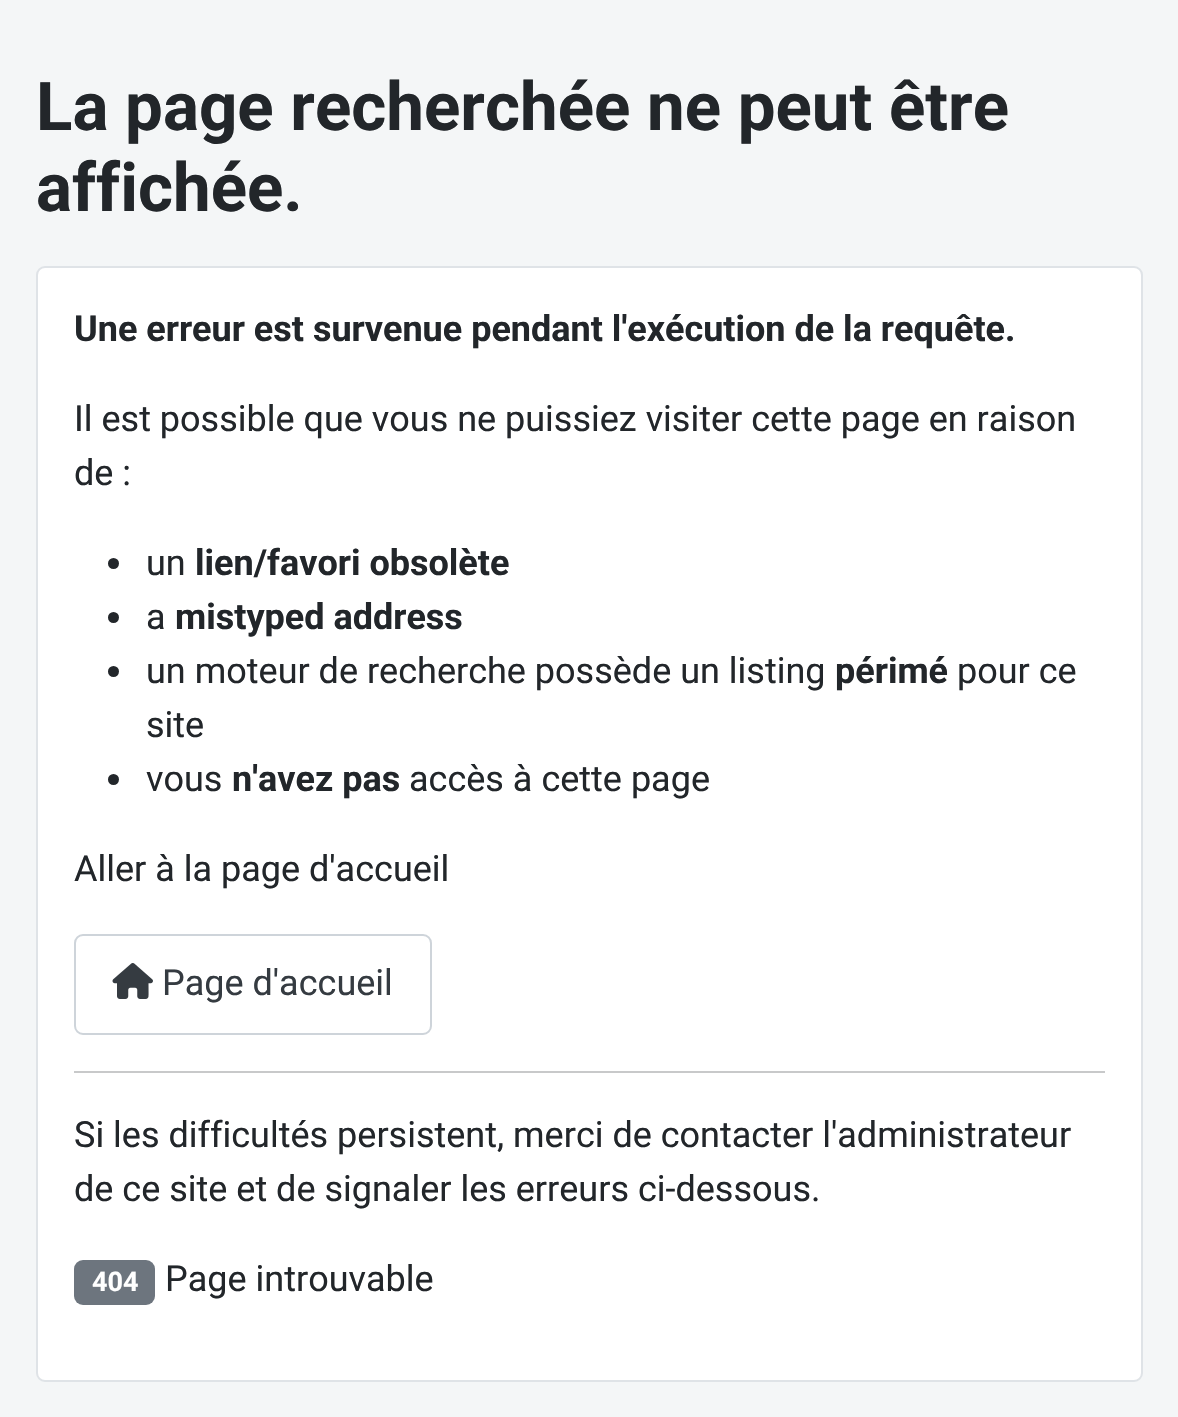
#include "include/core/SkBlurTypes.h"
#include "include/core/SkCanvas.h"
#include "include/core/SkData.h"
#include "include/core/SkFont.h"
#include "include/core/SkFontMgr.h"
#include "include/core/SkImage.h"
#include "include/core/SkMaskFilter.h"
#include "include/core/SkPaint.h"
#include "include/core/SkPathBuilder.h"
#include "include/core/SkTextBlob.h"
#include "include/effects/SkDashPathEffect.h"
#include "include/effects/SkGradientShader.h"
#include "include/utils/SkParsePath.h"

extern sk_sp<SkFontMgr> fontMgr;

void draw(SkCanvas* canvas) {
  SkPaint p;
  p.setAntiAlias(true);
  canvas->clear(SkColorSetRGB(244, 246, 247));
  p.setColor(SK_ColorWHITE);
  canvas->drawRoundRect(SkRect::MakeLTRB(37, 267, 1142, 1381), 8, 8, p);
  p.setStyle(SkPaint::kStroke_Style);
  p.setStrokeWidth(2);
  p.setColor(SkColorSetRGB(223, 227, 231));
  canvas->drawRoundRect(SkRect::MakeLTRB(37, 267, 1142, 1381), 8, 8, p);
  p.setStyle(SkPaint::kFill_Style);
  p.setColor(SkColorSetRGB(34, 38, 42));
  canvas->drawCircle(113.5f, 563.5f, 5.5f, p);
  canvas->drawCircle(113.5f, 617.5f, 5.5f, p);
  canvas->drawCircle(113.5f, 671.5f, 5.5f, p);
  canvas->drawCircle(113.5f, 779.5f, 5.5f, p);
  p.setStyle(SkPaint::kStroke_Style);
  p.setColor(SkColorSetRGB(206, 212, 218));
  canvas->drawRoundRect(SkRect::MakeLTRB(75, 935, 431, 1034), 8, 8, p);
  canvas->drawImageRect(SkImages::DeferredFromEncodedData(SkData::MakeFromFileName("images/1.png")), SkRect::MakeLTRB(112, 963, 153, 999), SkSamplingOptions());
  p.setStyle(SkPaint::kFill_Style);
  p.setColor(SkColorSetRGB(200, 201, 202));
  canvas->drawRect(SkRect::MakeLTRB(74, 1071, 1105, 1073), p);
  p.setColor(SkColorSetRGB(109, 117, 126));
  canvas->drawRoundRect(SkRect::MakeLTRB(74, 1260, 155, 1305), 9, 9, p);
  SkFont font1(fontMgr->matchFamilyStyle("Roboto", SkFontStyle::Bold()), 67.25f);
  font1.setSubpixel(true);
  p.setColor(SkColorSetRGB(34, 38, 42));
  canvas->drawString("La page recherchée ne peut être", 36, 130, font1, p);
  canvas->drawString("affichée.", 36, 211, font1, p);
  SkFont font2(fontMgr->matchFamilyStyle("Roboto", SkFontStyle::Bold()), 36);
  font2.setSubpixel(true);
  canvas->drawString("Une erreur est survenue pendant l'exécution de la requête.", 74, 341, font2, p);
  SkFont font3(fontMgr->matchFamilyStyle("Roboto", SkFontStyle::Normal()), 36);
  font3.setSubpixel(true);
  canvas->drawString("Il est possible que vous ne puissiez visiter cette page en raison", 74, 431, font3, p);
  canvas->drawString("de :", 74, 485, font3, p);
  canvas->drawString("un", 146, 575, font3, p);
  canvas->drawString("lien/favori obsolète", 195, 575, font2, p);
  canvas->drawString("a", 146, 629, font3, p);
  canvas->drawString("mistyped address", 175, 629, font2, p);
  canvas->drawString("un moteur de recherche possède un listing", 146, 683, font3, p);
  canvas->drawString("périmé", 835, 683, font2, p);
  canvas->drawString("pour ce", 957, 683, font3, p);
  canvas->drawString("site", 146, 737, font3, p);
  canvas->drawString("vous", 146, 791, font3, p);
  canvas->drawString("n'avez pas", 232, 791, font2, p);
  canvas->drawString("accès à cette page", 409, 791, font3, p);
  canvas->drawString("Aller à la page d'accueil", 74, 881, font3, p);
  p.setColor(SkColorSetRGB(53, 59, 65));
  canvas->drawString("Page d'accueil", 162, 995, font3, p);
  p.setColor(SkColorSetRGB(34, 38, 42));
  canvas->drawString("Si les difficultés persistent, merci de contacter l'administrateur", 74, 1147, font3, p);
  canvas->drawString("de ce site et de signaler les erreurs ci-dessous.", 74, 1201, font3, p);
  SkFont font4(fontMgr->matchFamilyStyle("Roboto", SkFontStyle::Bold()), 27);
  font4.setSubpixel(true);
  p.setColor(SK_ColorWHITE);
  canvas->drawString("404", 92, 1291, font4, p);
  p.setColor(SkColorSetRGB(34, 38, 42));
  canvas->drawString("Page introuvable", 165, 1291, font3, p);
}
